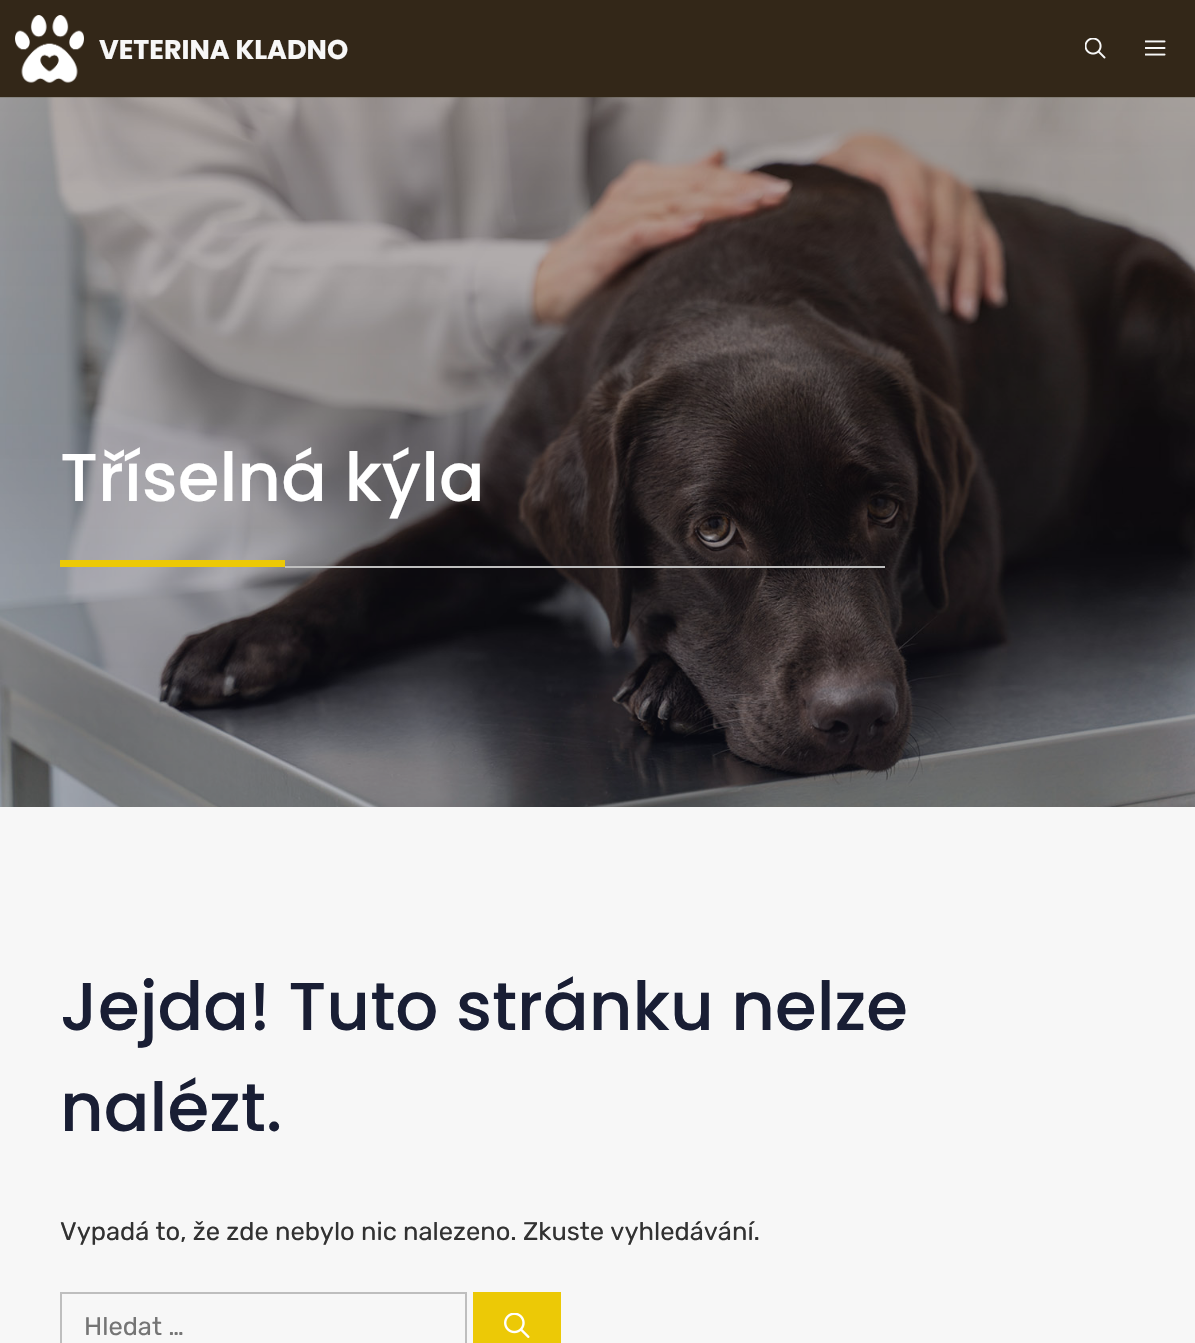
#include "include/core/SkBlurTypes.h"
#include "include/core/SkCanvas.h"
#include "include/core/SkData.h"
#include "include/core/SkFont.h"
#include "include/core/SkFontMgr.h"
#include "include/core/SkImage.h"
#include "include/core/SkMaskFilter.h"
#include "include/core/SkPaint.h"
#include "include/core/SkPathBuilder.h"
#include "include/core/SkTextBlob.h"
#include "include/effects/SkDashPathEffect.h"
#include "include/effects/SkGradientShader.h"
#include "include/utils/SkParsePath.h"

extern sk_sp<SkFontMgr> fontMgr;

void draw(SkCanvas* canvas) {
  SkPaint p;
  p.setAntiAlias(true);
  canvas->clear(SkColorSetRGB(51, 39, 24));
  canvas->drawImageRect(SkImages::DeferredFromEncodedData(SkData::MakeFromFileName("images/1.png")), SkRect::MakeLTRB(15, 15, 84, 83), SkSamplingOptions());
  canvas->drawImageRect(SkImages::DeferredFromEncodedData(SkData::MakeFromFileName("images/2.png")), SkRect::MakeLTRB(1085, 38, 1106, 59), SkSamplingOptions());
  canvas->drawImageRect(SkImages::DeferredFromEncodedData(SkData::MakeFromFileName("images/3.png")), SkRect::MakeLTRB(1145, 40, 1166, 56), SkSamplingOptions());
  canvas->drawImageRect(SkImages::DeferredFromEncodedData(SkData::MakeFromFileName("images/4.png")), SkRect::MakeLTRB(0, 97, 1195, 807), SkSamplingOptions());
  p.setColor(SkColorSetRGB(236, 201, 6));
  canvas->drawRect(SkRect::MakeLTRB(60, 560, 285, 567), p);
  p.setColor(SkColorSetRGB(190, 190, 190));
  canvas->drawRect(SkRect::MakeLTRB(285, 566, 885, 568), p);
  p.setColor(SkColorSetRGB(247, 247, 247));
  canvas->drawRect(SkRect::MakeLTRB(0, 807, 1195, 1343), p);
  p.setStyle(SkPaint::kStroke_Style);
  p.setStrokeWidth(2);
  p.setColor(SkColorSetRGB(190, 190, 190));
  canvas->drawRect(SkRect::MakeLTRB(61, 1293, 466, 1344), p);
  p.setStyle(SkPaint::kFill_Style);
  p.setColor(SkColorSetRGB(236, 201, 6));
  canvas->drawRect(SkRect::MakeLTRB(473, 1292, 561, 1343), p);
  canvas->drawImageRect(SkImages::DeferredFromEncodedData(SkData::MakeFromFileName("images/5.png")), SkRect::MakeLTRB(504, 1313, 530, 1338), SkSamplingOptions());
  SkFont font1(fontMgr->matchFamilyStyle("Poppins", SkFontStyle::Bold()), 27);
  font1.setSubpixel(true);
  p.setColor(SkColorSetRGB(247, 247, 247));
  canvas->drawString("VETERINA KLADNO", 99, 59, font1, p);
  SkFont font2(fontMgr->matchFamilyStyle("Poppins", SkFontStyle(500, SkFontStyle::kNormal_Width, SkFontStyle::kUpright_Slant)), 67.5f);
  font2.setSubpixel(true);
  p.setColor(SK_ColorWHITE);
  canvas->drawString("Tříselná kýla", 60, 501, font2, p);
  p.setColor(SkColorSetRGB(25, 30, 52));
  canvas->drawString("Jejda! Tuto stránku nelze", 60, 1030, font2, p);
  canvas->drawString("nalézt.", 60, 1131, font2, p);
  SkFont font3(fontMgr->matchFamilyStyle("Rubik", SkFontStyle::Normal()), 25.5f);
  font3.setSubpixel(true);
  p.setColor(SkColorSetRGB(50, 50, 50));
  canvas->drawString("Vypadá to, že zde nebylo nic nalezeno. Zkuste vyhledávání.", 60, 1240, font3, p);
  p.setColor(SkColorSetRGB(117, 117, 117));
  canvas->drawString("Hledat …", 84, 1335, font3, p);
}
